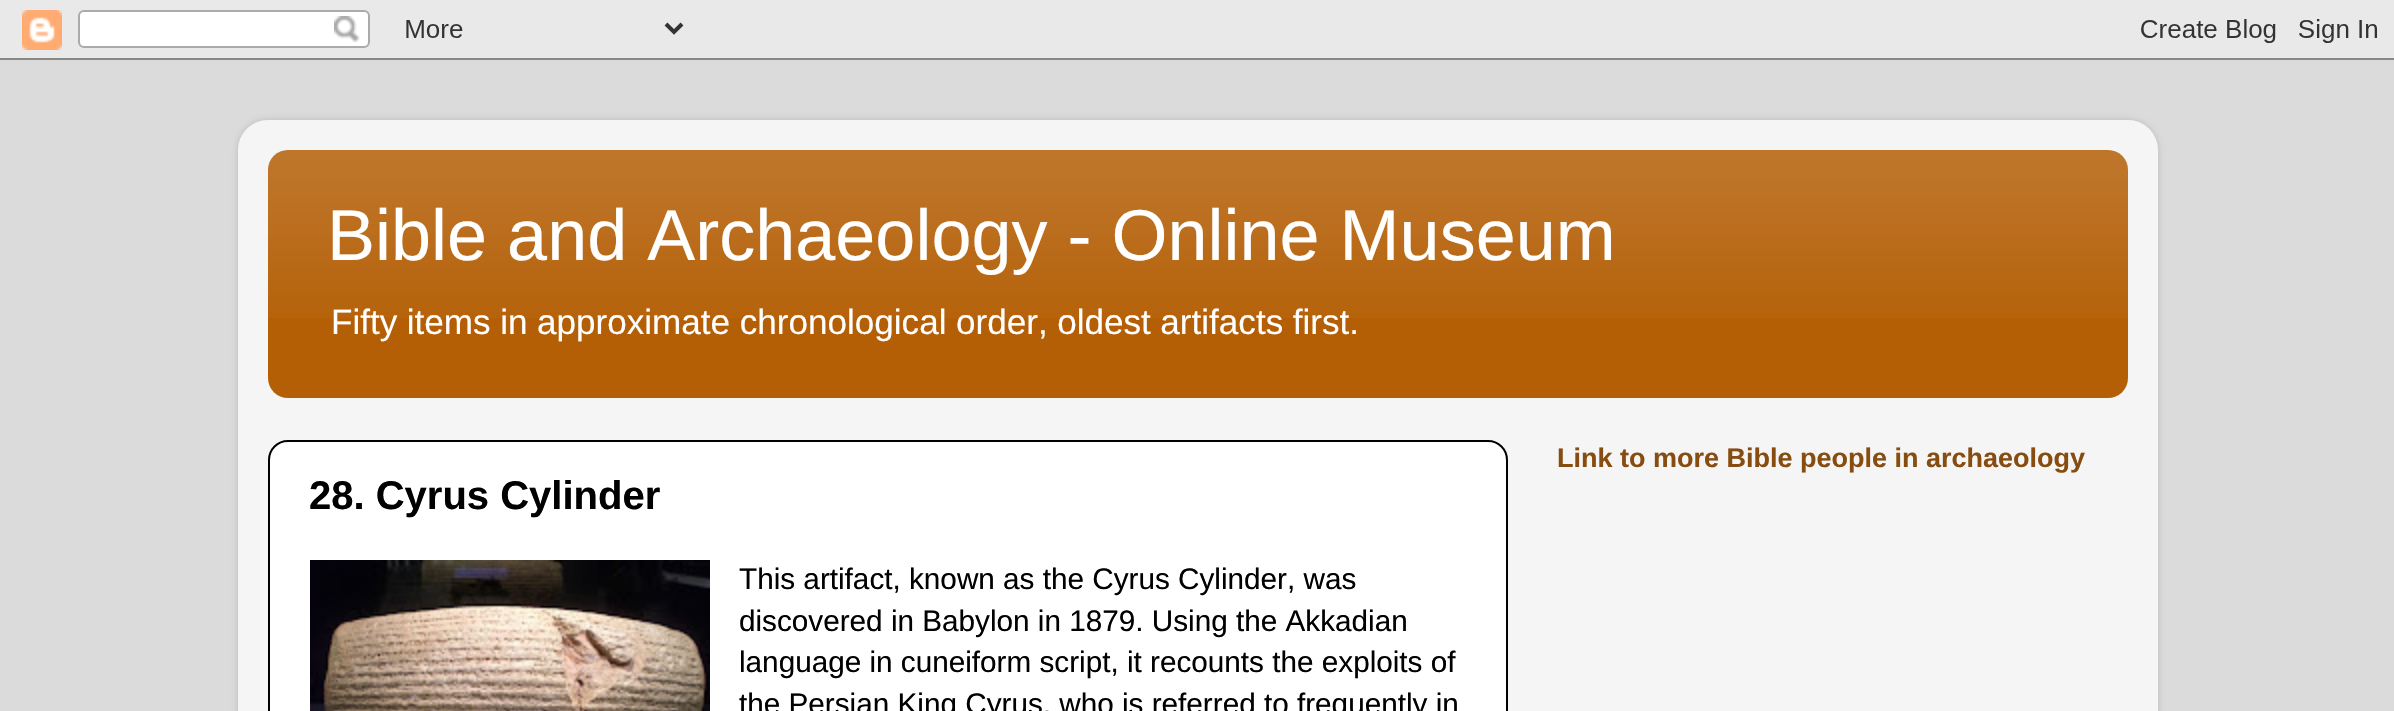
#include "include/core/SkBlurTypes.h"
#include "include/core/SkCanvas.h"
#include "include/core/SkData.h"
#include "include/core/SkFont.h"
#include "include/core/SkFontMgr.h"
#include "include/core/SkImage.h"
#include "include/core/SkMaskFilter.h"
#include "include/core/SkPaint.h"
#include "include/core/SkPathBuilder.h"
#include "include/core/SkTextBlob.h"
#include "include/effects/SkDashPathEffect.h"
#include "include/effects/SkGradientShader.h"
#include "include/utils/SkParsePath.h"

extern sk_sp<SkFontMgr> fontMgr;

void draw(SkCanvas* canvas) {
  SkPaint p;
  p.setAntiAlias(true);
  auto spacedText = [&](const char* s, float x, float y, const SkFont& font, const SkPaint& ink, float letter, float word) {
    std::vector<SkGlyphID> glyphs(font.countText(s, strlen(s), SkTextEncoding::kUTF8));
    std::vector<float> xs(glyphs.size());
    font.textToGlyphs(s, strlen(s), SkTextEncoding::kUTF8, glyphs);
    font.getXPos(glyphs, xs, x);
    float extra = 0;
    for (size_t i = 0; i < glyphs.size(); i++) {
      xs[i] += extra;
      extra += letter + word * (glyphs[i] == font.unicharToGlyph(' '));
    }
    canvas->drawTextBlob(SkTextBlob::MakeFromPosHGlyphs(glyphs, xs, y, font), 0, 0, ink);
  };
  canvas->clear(SkColorSetRGB(219, 219, 219));
  canvas->drawImageRect(SkImages::DeferredFromEncodedData(SkData::MakeFromFileName("images/1.png")), SkRect::MakeLTRB(0, 0, 2394, 60), SkSamplingOptions());
  canvas->save();
  canvas->clipPath(SkPathBuilder(SkPathFillType::kEvenOdd).moveTo(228, 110).lineTo(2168, 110).lineTo(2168, 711).lineTo(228, 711).close().moveTo(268, 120).lineTo(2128, 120).cubicTo(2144.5f, 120, 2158, 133.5f, 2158, 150).lineTo(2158, 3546).cubicTo(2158, 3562.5f, 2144.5f, 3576, 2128, 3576).lineTo(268, 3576).cubicTo(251.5f, 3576, 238, 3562.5f, 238, 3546).lineTo(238, 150).cubicTo(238, 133.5f, 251.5f, 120, 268, 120).close().detach(), true);
  p.setColor(SkColorSetARGB(38, 0, 0, 0));
  p.setMaskFilter(SkMaskFilter::MakeBlur(kNormal_SkBlurStyle, 3));
  canvas->drawRoundRect(SkRect::MakeLTRB(238, 120, 2158, 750), 30, 30, p);
  p.setMaskFilter(nullptr);
  canvas->restore();
  canvas->drawImageRect(SkImages::DeferredFromEncodedData(SkData::MakeFromFileName("images/2.png")), SkRect::MakeLTRB(238, 120, 2158, 711), SkSamplingOptions());
  p.setColor(SkColorSetRGB(180, 95, 6));
  canvas->drawRoundRect(SkRect::MakeLTRB(268, 150, 2128, 398), 20, 20, p);
  canvas->drawImageRect(SkImages::DeferredFromEncodedData(SkData::MakeFromFileName("images/3.png")), SkRect::MakeLTRB(268, 150, 2128, 318), SkSamplingOptions());
  p.setColor(SK_ColorWHITE);
  canvas->drawRoundRect(SkRect::MakeLTRB(269, 441, 1507, 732), 19, 19, p);
  p.setStyle(SkPaint::kStroke_Style);
  p.setStrokeWidth(2);
  p.setColor(SK_ColorBLACK);
  canvas->drawRoundRect(SkRect::MakeLTRB(269, 441, 1507, 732), 19, 19, p);
  canvas->drawImageRect(SkImages::DeferredFromEncodedData(SkData::MakeFromFileName("images/4.png")), SkRect::MakeLTRB(310, 560, 710, 711), SkSamplingOptions());
  SkFont font1(fontMgr->matchFamilyStyle("Liberation Sans", SkFontStyle::Normal()), 72);
  font1.setSubpixel(true);
  p.setStyle(SkPaint::kFill_Style);
  p.setColor(SK_ColorWHITE);
  canvas->drawString("Bible and Archaeology - Online Museum", 327, 260, font1, p);
  SkFont font2(fontMgr->matchFamilyStyle("Liberation Sans", SkFontStyle::Normal()), 35.1f);
  font2.setSubpixel(true);
  spacedText("Fifty items in approximate chronological order, oldest artifacts first.", 331, 334, font2, p, 0, -0.25f);
  SkFont font3(fontMgr->matchFamilyStyle("Liberation Sans", SkFontStyle::Bold()), 27);
  font3.setSubpixel(true);
  p.setColor(SkColorSetRGB(135, 76, 15));
  canvas->drawString("Link to more Bible people in archaeology", 1557, 467, font3, p);
  SkFont font4(fontMgr->matchFamilyStyle("Liberation Sans", SkFontStyle::Bold()), 40);
  font4.setSubpixel(true);
  p.setColor(SK_ColorBLACK);
  canvas->drawString("28. Cyrus Cylinder", 309, 509, font4, p);
  SkFont font5(fontMgr->matchFamilyStyle("Liberation Sans", SkFontStyle::Normal()), 29.7f);
  font5.setSubpixel(true);
  canvas->drawString("This artifact, known as the Cyrus Cylinder, was", 739, 589, font5, p);
  canvas->drawString("discovered in Babylon in 1879. Using the Akkadian", 739, 631, font5, p);
  canvas->drawString("language in cuneiform script, it recounts the exploits of", 739, 672, font5, p);
  canvas->drawString("the Persian King Cyrus, who is referred to frequently in", 739, 714, font5, p);
}
